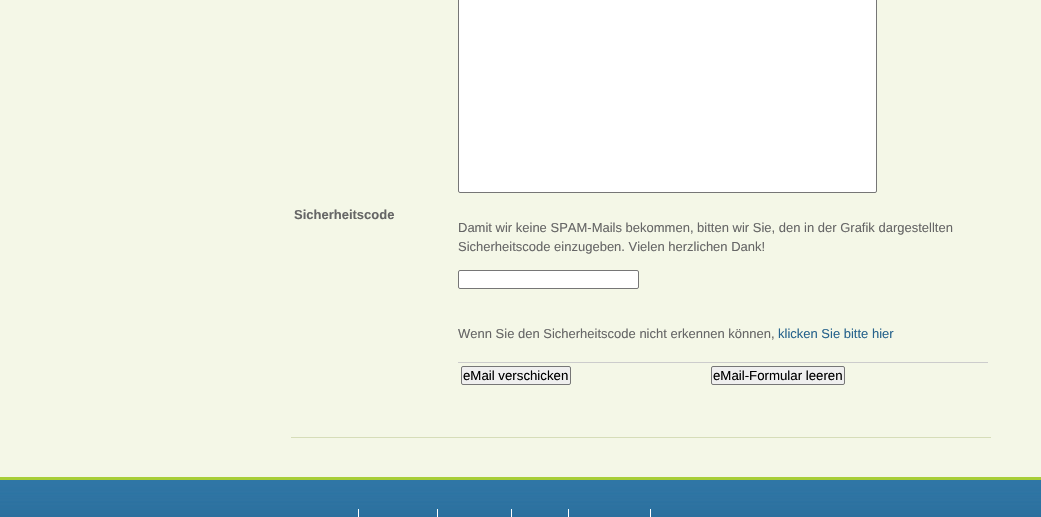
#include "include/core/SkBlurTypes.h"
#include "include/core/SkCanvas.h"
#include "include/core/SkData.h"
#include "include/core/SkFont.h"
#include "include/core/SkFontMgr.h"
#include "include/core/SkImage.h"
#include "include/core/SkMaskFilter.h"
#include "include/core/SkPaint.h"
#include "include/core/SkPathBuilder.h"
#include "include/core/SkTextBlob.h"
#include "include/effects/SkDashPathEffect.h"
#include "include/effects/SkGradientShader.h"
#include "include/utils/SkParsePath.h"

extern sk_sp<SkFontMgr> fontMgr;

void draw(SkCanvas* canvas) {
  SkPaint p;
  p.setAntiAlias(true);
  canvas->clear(SkColorSetRGB(244, 247, 231));
  p.setColor(SkColorSetRGB(214, 221, 185));
  canvas->drawRect(SkRect::MakeLTRB(291, 437, 991, 438), p);
  p.setColor(SK_ColorWHITE);
  canvas->drawRoundRect(SkRect::MakeLTRB(458.5f, -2.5f, 876.5f, 192.5f), 1.5f, 1.5f, p);
  p.setStyle(SkPaint::kStroke_Style);
  p.setStrokeWidth(1);
  p.setColor(SkColorSetRGB(118, 118, 118));
  canvas->drawRoundRect(SkRect::MakeLTRB(458.5f, -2.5f, 876.5f, 192.5f), 1.5f, 1.5f, p);
  p.setStyle(SkPaint::kFill_Style);
  p.setColor(SK_ColorWHITE);
  canvas->drawRoundRect(SkRect::MakeLTRB(458.5f, 270.5f, 638.5f, 288.5f), 1.5f, 1.5f, p);
  p.setStyle(SkPaint::kStroke_Style);
  p.setColor(SkColorSetRGB(118, 118, 118));
  canvas->drawRoundRect(SkRect::MakeLTRB(458.5f, 270.5f, 638.5f, 288.5f), 1.5f, 1.5f, p);
  p.setStyle(SkPaint::kFill_Style);
  p.setColor(SkColorSetRGB(204, 204, 204));
  canvas->drawRect(SkRect::MakeLTRB(458, 362, 988, 363), p);
  p.setColor(SkColorSetRGB(239, 239, 239));
  canvas->drawRoundRect(SkRect::MakeLTRB(461.5f, 366.5f, 570.5f, 384.5f), 1.5f, 1.5f, p);
  p.setStyle(SkPaint::kStroke_Style);
  p.setColor(SkColorSetRGB(118, 118, 118));
  canvas->drawRoundRect(SkRect::MakeLTRB(461.5f, 366.5f, 570.5f, 384.5f), 1.5f, 1.5f, p);
  p.setStyle(SkPaint::kFill_Style);
  p.setColor(SkColorSetRGB(239, 239, 239));
  canvas->drawRoundRect(SkRect::MakeLTRB(711.5f, 366.5f, 844.5f, 384.5f), 1.5f, 1.5f, p);
  p.setStyle(SkPaint::kStroke_Style);
  p.setColor(SkColorSetRGB(118, 118, 118));
  canvas->drawRoundRect(SkRect::MakeLTRB(711.5f, 366.5f, 844.5f, 384.5f), 1.5f, 1.5f, p);
  canvas->drawImageRect(SkImages::DeferredFromEncodedData(SkData::MakeFromFileName("images/1.png")), SkRect::MakeLTRB(0, 477, 1041, 517), SkSamplingOptions());
  p.setStyle(SkPaint::kFill_Style);
  p.setColor(SK_ColorWHITE);
  canvas->drawRect(SkRect::MakeLTRB(358, 509, 359, 517), p);
  canvas->drawRect(SkRect::MakeLTRB(437, 509, 438, 517), p);
  canvas->drawRect(SkRect::MakeLTRB(511, 509, 512, 517), p);
  canvas->drawRect(SkRect::MakeLTRB(568, 509, 569, 517), p);
  canvas->drawRect(SkRect::MakeLTRB(650, 509, 651, 517), p);
  SkFont font1(fontMgr->matchFamilyStyle("Liberation Sans", SkFontStyle::Bold()), 13);
  font1.setSubpixel(true);
  p.setColor(SkColorSetRGB(102, 102, 102));
  canvas->drawString("Sicherheitscode", 294, 219, font1, p);
  SkFont font2(fontMgr->matchFamilyStyle("Liberation Sans", SkFontStyle::Normal()), 13);
  font2.setSubpixel(true);
  canvas->drawString("Damit wir keine SPAM-Mails bekommen, bitten wir Sie, den in der Grafik dargestellten", 458, 232, font2, p);
  canvas->drawString("Sicherheitscode einzugeben. Vielen herzlichen Dank!", 458, 251, font2, p);
  canvas->drawString("Wenn Sie den Sicherheitscode nicht erkennen können,", 458, 338, font2, p);
  p.setColor(SkColorSetRGB(39, 99, 140));
  canvas->drawString("klicken Sie bitte hier", 778, 338, font2, p);
  SkFont font3(fontMgr->matchFamilyStyle("Liberation Sans", SkFontStyle::Normal()), 13.25f);
  font3.setSubpixel(true);
  p.setColor(SK_ColorBLACK);
  canvas->drawString("eMail verschicken", 463, 380, font3, p);
  canvas->drawString("eMail-Formular leeren", 713, 380, font3, p);
}
